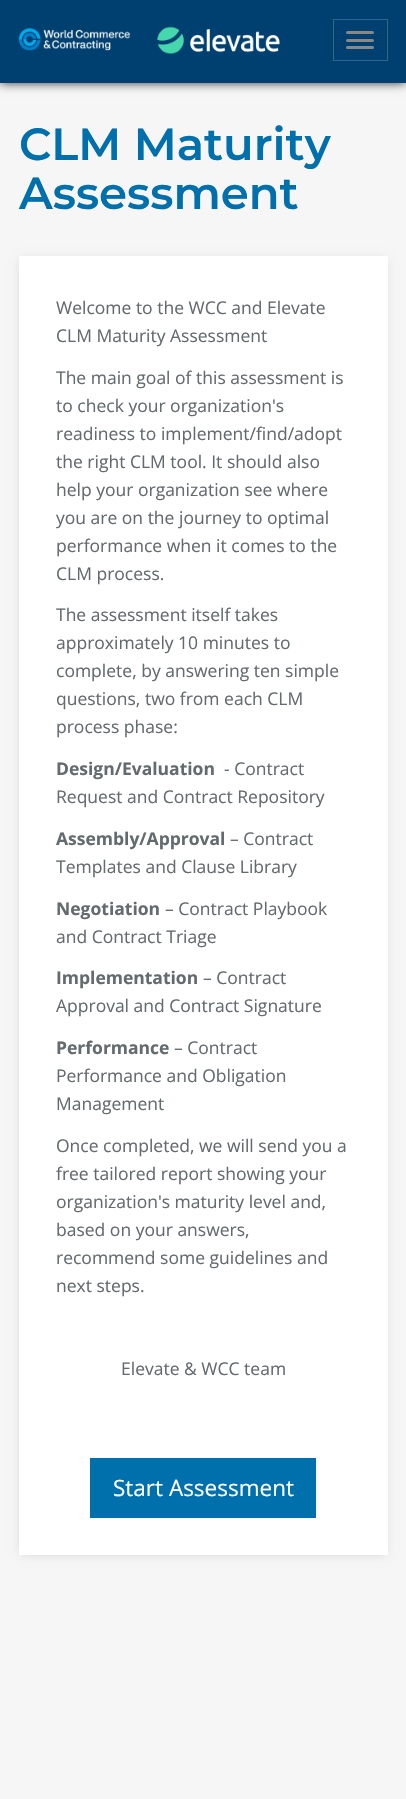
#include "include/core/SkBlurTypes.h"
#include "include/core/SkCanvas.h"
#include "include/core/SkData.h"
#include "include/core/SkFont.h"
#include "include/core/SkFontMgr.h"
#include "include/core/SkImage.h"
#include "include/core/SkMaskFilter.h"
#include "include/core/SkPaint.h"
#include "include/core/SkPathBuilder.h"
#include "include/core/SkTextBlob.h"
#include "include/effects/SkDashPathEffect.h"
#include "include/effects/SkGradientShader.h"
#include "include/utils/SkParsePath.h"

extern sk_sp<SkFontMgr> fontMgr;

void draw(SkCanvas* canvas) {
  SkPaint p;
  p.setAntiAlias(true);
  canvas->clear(SkColorSetRGB(246, 246, 246));
  p.setColor(SkColorSetRGB(50, 50, 50));
  p.setMaskFilter(SkMaskFilter::MakeBlur(kNormal_SkBlurStyle, 5));
  canvas->drawRect(SkRect::MakeLTRB(0, 0, 406, 83), p);
  p.setMaskFilter(nullptr);
  p.setColor(SkColorSetRGB(0, 64, 112));
  canvas->drawRect(SkRect::MakeLTRB(0, 0, 406, 83), p);
  canvas->drawImageRect(SkImages::DeferredFromEncodedData(SkData::MakeFromFileName("images/1.png")), SkRect::MakeLTRB(18, 26, 280, 54), SkSamplingOptions());
  p.setStyle(SkPaint::kStroke_Style);
  p.setStrokeWidth(1);
  p.setColor(SkColorSetRGB(51, 102, 141));
  canvas->drawRect(SkRect::MakeLTRB(333.5f, 19.5f, 387.5f, 60.5f), p);
  p.setStyle(SkPaint::kFill_Style);
  p.setColor(SkColorSetRGB(136, 136, 136));
  canvas->drawRoundRect(SkRect::MakeLTRB(346, 31, 374, 34), 1.5f, 1.5f, p);
  canvas->drawRoundRect(SkRect::MakeLTRB(346, 39, 374, 42), 1.5f, 1.5f, p);
  canvas->drawRoundRect(SkRect::MakeLTRB(346, 46, 374, 49), 1.5f, 1.5f, p);
  p.setColor(SkColorSetRGB(210, 210, 210));
  p.setMaskFilter(SkMaskFilter::MakeBlur(kNormal_SkBlurStyle, 5));
  canvas->drawRect(SkRect::MakeLTRB(21, 260, 385, 1554), p);
  p.setMaskFilter(nullptr);
  p.setColor(SK_ColorWHITE);
  canvas->drawRect(SkRect::MakeLTRB(19, 256, 388, 1555), p);
  p.setColor(SkColorSetRGB(0, 112, 173));
  canvas->drawRect(SkRect::MakeLTRB(90, 1458, 316, 1518), p);
  SkFont font1(fontMgr->matchFamilyStyle("Montserrat", SkFontStyle(600, SkFontStyle::kNormal_Width, SkFontStyle::kUpright_Slant)), 45);
  font1.setSubpixel(true);
  canvas->drawString("CLM Maturity", 19, 160, font1, p);
  canvas->drawString("Assessment", 19, 209, font1, p);
  SkFont font2(fontMgr->matchFamilyStyle("Open Sans", SkFontStyle::Normal()), 17.5f);
  font2.setSubpixel(true);
  p.setColor(SkColorSetRGB(99, 107, 111));
  canvas->drawString("Welcome to the WCC and Elevate", 56, 314, font2, p);
  canvas->drawString("CLM Maturity Assessment", 56, 342, font2, p);
  canvas->drawString("The main goal of this assessment is", 56, 384, font2, p);
  canvas->drawString("to check your organization's", 56, 412, font2, p);
  canvas->drawString("readiness to implement/find/adopt", 56, 440, font2, p);
  canvas->drawString("the right CLM tool. It should also", 56, 468, font2, p);
  canvas->drawString("help your organization see where", 56, 496, font2, p);
  canvas->drawString("you are on the journey to optimal", 56, 524, font2, p);
  canvas->drawString("performance when it comes to the", 56, 552, font2, p);
  canvas->drawString("CLM process.", 56, 580, font2, p);
  canvas->drawString("The assessment itself takes", 56, 621, font2, p);
  canvas->drawString("approximately 10 minutes to", 56, 649, font2, p);
  canvas->drawString("complete, by answering ten simple", 56, 677, font2, p);
  canvas->drawString("questions, two from each CLM", 56, 705, font2, p);
  canvas->drawString("process phase:", 56, 733, font2, p);
  SkFont font3(fontMgr->matchFamilyStyle("Open Sans", SkFontStyle::Bold()), 17.5f);
  font3.setSubpixel(true);
  canvas->drawString("Design/Evaluation", 56, 775, font3, p);
  canvas->drawString("- Contract", 224, 775, font2, p);
  canvas->drawString("Request and Contract Repository", 56, 803, font2, p);
  canvas->drawString("Assembly/Approval", 56, 845, font3, p);
  canvas->drawString("– Contract", 230, 845, font2, p);
  canvas->drawString("Templates and Clause Library", 56, 873, font2, p);
  canvas->drawString("Negotiation", 56, 915, font3, p);
  canvas->drawString("– Contract Playbook", 165, 915, font2, p);
  canvas->drawString("and Contract Triage", 56, 943, font2, p);
  canvas->drawString("Implementation", 56, 984, font3, p);
  canvas->drawString("– Contract", 203, 984, font2, p);
  canvas->drawString("Approval and Contract Signature", 56, 1012, font2, p);
  canvas->drawString("Performance", 56, 1054, font3, p);
  canvas->drawString("– Contract", 174, 1054, font2, p);
  canvas->drawString("Performance and Obligation", 56, 1082, font2, p);
  canvas->drawString("Management", 56, 1110, font2, p);
  canvas->drawString("Once completed, we will send you a", 56, 1152, font2, p);
  canvas->drawString("free tailored report showing your", 56, 1180, font2, p);
  canvas->drawString("organization's maturity level and,", 56, 1208, font2, p);
  canvas->drawString("based on your answers,", 56, 1236, font2, p);
  canvas->drawString("recommend some guidelines and", 56, 1264, font2, p);
  canvas->drawString("next steps.", 56, 1292, font2, p);
  canvas->drawString("Elevate & WCC team", 121, 1375, font2, p);
  SkFont font4(fontMgr->matchFamilyStyle("Open Sans", SkFontStyle::Normal()), 22.5f);
  font4.setSubpixel(true);
  p.setColor(SK_ColorWHITE);
  canvas->drawString("Start Assessment", 113, 1496, font4, p);
}
